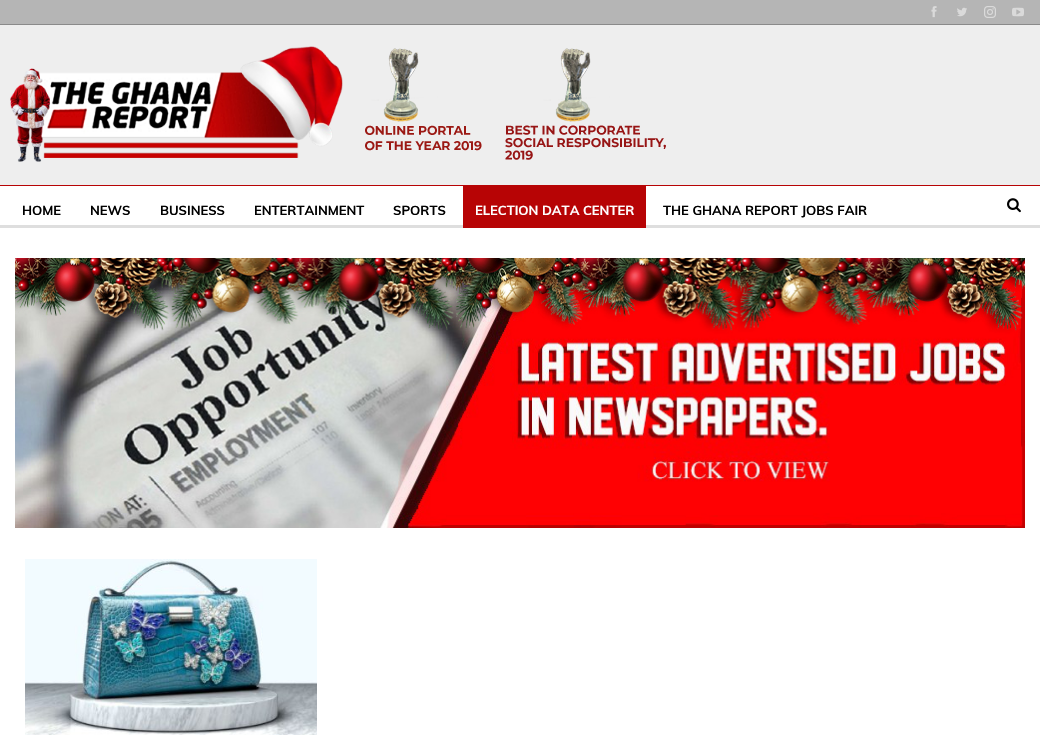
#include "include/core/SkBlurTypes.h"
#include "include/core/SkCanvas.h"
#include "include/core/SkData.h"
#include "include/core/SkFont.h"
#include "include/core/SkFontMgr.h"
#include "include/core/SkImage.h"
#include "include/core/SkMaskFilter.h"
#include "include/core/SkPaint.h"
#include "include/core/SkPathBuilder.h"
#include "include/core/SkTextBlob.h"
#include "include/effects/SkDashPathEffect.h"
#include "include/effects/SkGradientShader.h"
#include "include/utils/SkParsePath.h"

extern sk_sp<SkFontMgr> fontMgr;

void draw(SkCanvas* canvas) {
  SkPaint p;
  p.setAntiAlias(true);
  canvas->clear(SkColorSetRGB(238, 238, 238));
  p.setColor(SkColorSetRGB(181, 181, 181));
  canvas->drawRect(SkRect::MakeLTRB(0, 0, 1040, 24), p);
  p.setColor(SkColorSetRGB(138, 138, 138));
  canvas->drawRect(SkRect::MakeLTRB(0, 24, 1040, 25), p);
  canvas->drawImageRect(SkImages::DeferredFromEncodedData(SkData::MakeFromFileName("images/1.png")), SkRect::MakeLTRB(931, 6, 937, 18), SkSamplingOptions());
  canvas->drawImageRect(SkImages::DeferredFromEncodedData(SkData::MakeFromFileName("images/2.png")), SkRect::MakeLTRB(957, 7, 967, 17), SkSamplingOptions());
  canvas->drawImageRect(SkImages::DeferredFromEncodedData(SkData::MakeFromFileName("images/3.png")), SkRect::MakeLTRB(984, 6, 996, 18), SkSamplingOptions());
  canvas->drawImageRect(SkImages::DeferredFromEncodedData(SkData::MakeFromFileName("images/4.png")), SkRect::MakeLTRB(1012, 7, 1024, 17), SkSamplingOptions());
  canvas->drawImageRect(SkImages::DeferredFromEncodedData(SkData::MakeFromFileName("images/5.png")), SkRect::MakeLTRB(10, 46, 343, 162), SkSamplingOptions());
  canvas->drawImageRect(SkImages::DeferredFromEncodedData(SkData::MakeFromFileName("images/6.png")), SkRect::MakeLTRB(365, 48, 666, 160), SkSamplingOptions());
  p.setColor(SK_ColorWHITE);
  canvas->drawRect(SkRect::MakeLTRB(0, 186, 1040, 225), p);
  p.setColor(SkColorSetRGB(183, 4, 5));
  canvas->drawRect(SkRect::MakeLTRB(0, 185, 1040, 186), p);
  p.setColor(SkColorSetRGB(222, 222, 222));
  canvas->drawRect(SkRect::MakeLTRB(0, 225, 1040, 228), p);
  p.setColor(SkColorSetRGB(183, 4, 5));
  canvas->drawRect(SkRect::MakeLTRB(463, 186, 646, 228), p);
  canvas->drawImageRect(SkImages::DeferredFromEncodedData(SkData::MakeFromFileName("images/7.png")), SkRect::MakeLTRB(1007, 198, 1021, 213), SkSamplingOptions());
  p.setColor(SK_ColorWHITE);
  canvas->drawRect(SkRect::MakeLTRB(0, 228, 1040, 748), p);
  canvas->drawImageRect(SkImages::DeferredFromEncodedData(SkData::MakeFromFileName("images/8.png")), SkRect::MakeLTRB(15, 258, 1025, 528), SkSamplingOptions());
  canvas->drawImageRect(SkImages::DeferredFromEncodedData(SkData::MakeFromFileName("images/9.png")), SkRect::MakeLTRB(25, 559, 317, 735), SkSamplingOptions());
  SkFont font1(fontMgr->matchFamilyStyle("Muli", SkFontStyle::Bold()), 13);
  font1.setSubpixel(true);
  p.setColor(SK_ColorBLACK);
  canvas->drawString("HOME", 22, 215, font1, p);
  canvas->drawString("NEWS", 90, 215, font1, p);
  canvas->drawString("BUSINESS", 160, 215, font1, p);
  canvas->drawString("ENTERTAINMENT", 254, 215, font1, p);
  canvas->drawString("SPORTS", 393, 215, font1, p);
  p.setColor(SK_ColorWHITE);
  canvas->drawString("ELECTION DATA CENTER", 475, 215, font1, p);
  p.setColor(SK_ColorBLACK);
  canvas->drawString("THE GHANA REPORT JOBS FAIR", 663, 215, font1, p);
}
